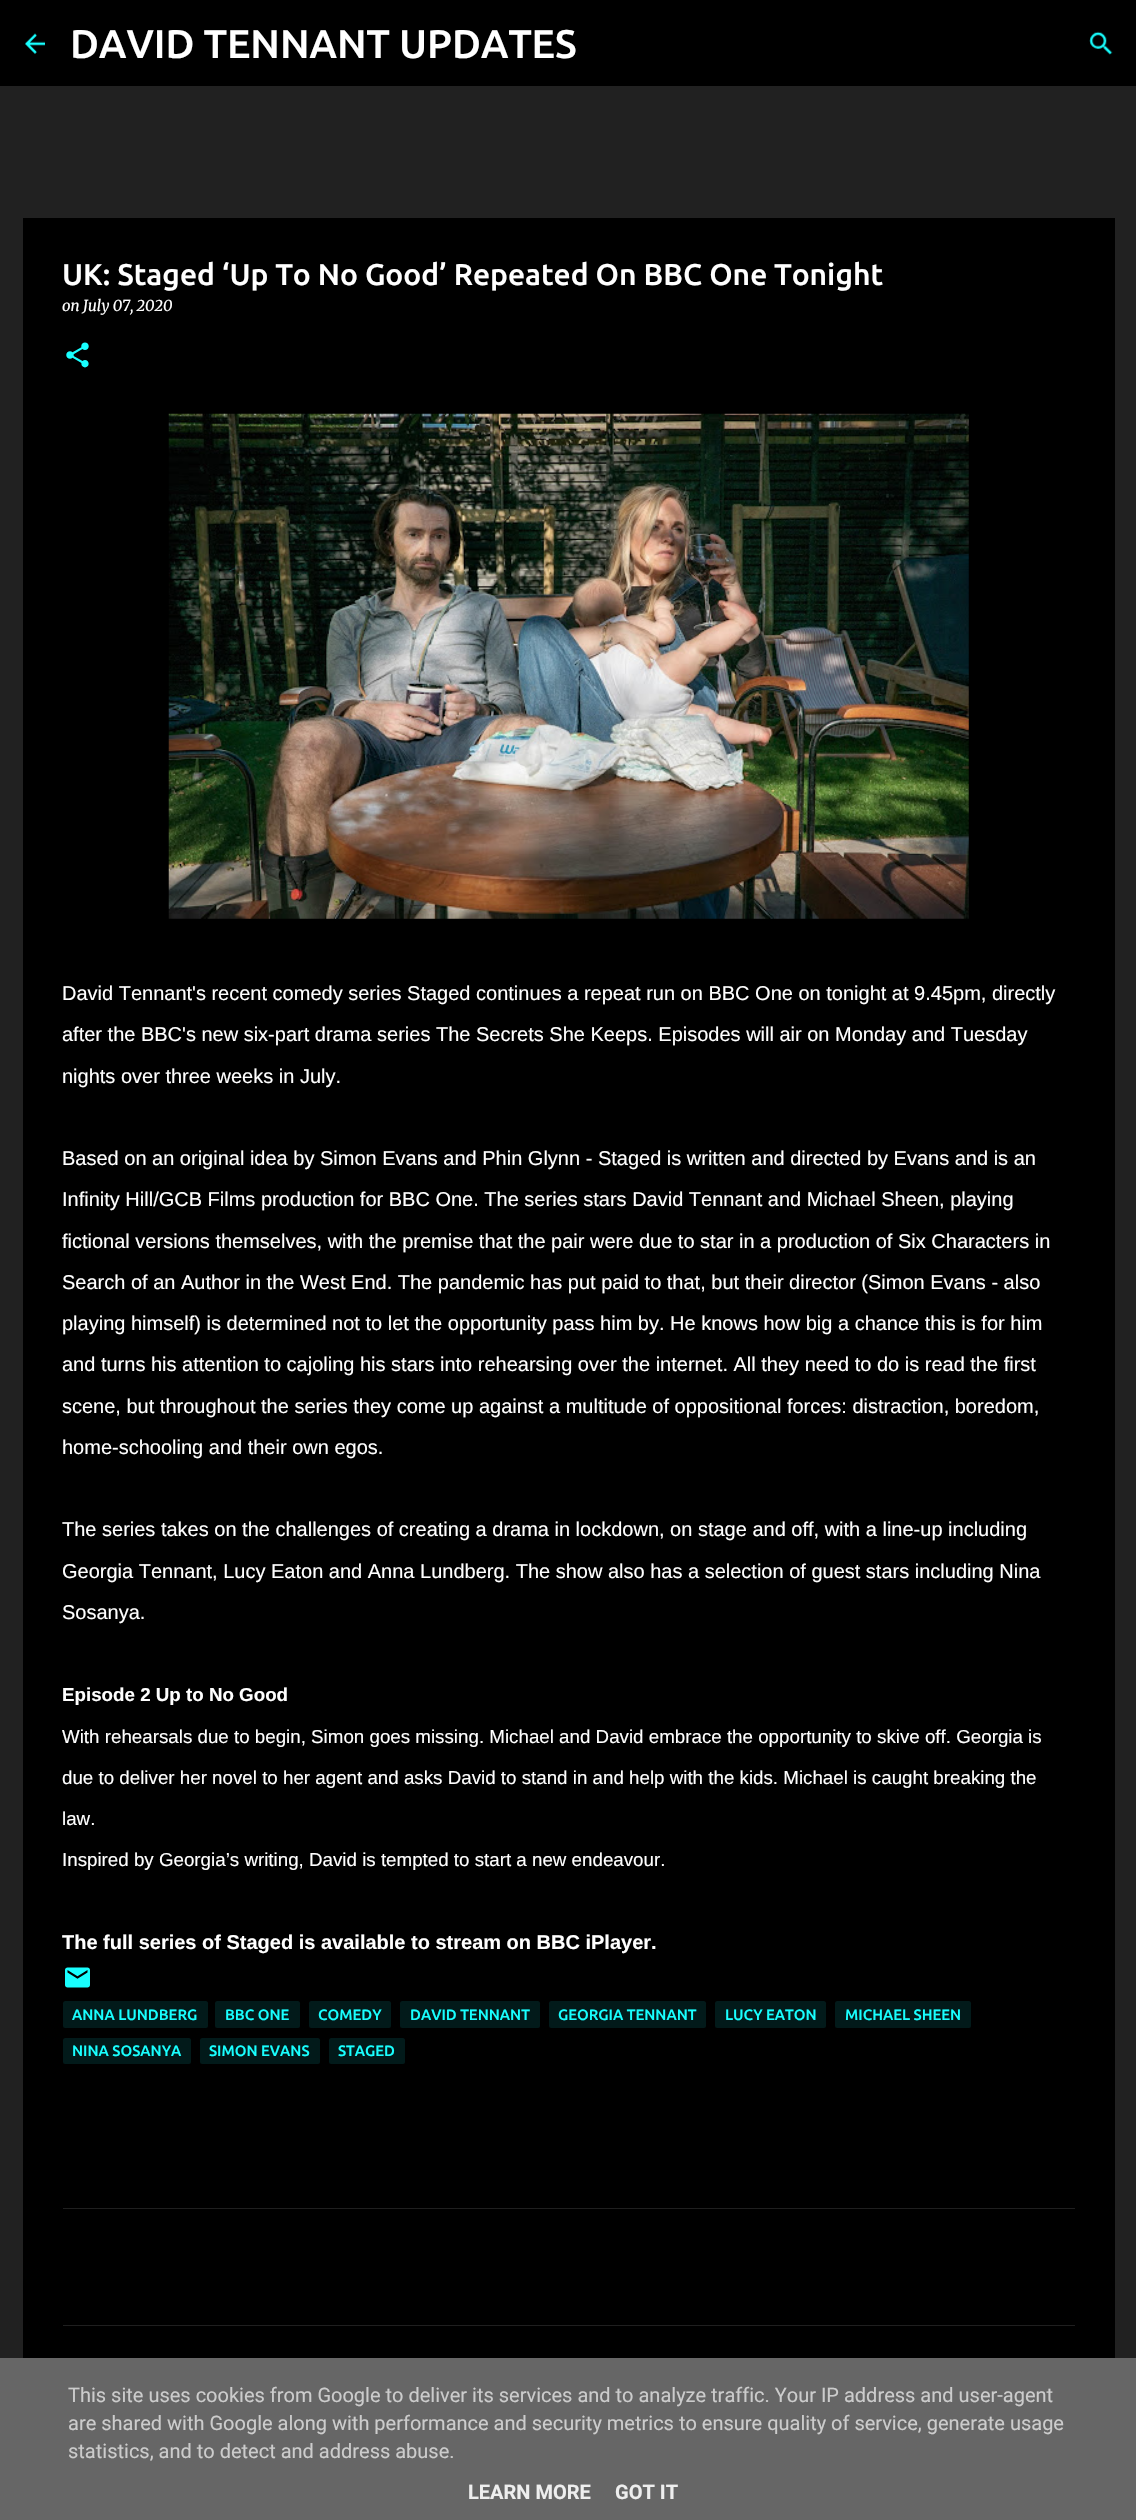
#include "include/core/SkBlurTypes.h"
#include "include/core/SkCanvas.h"
#include "include/core/SkData.h"
#include "include/core/SkFont.h"
#include "include/core/SkFontMgr.h"
#include "include/core/SkImage.h"
#include "include/core/SkMaskFilter.h"
#include "include/core/SkPaint.h"
#include "include/core/SkPathBuilder.h"
#include "include/core/SkTextBlob.h"
#include "include/effects/SkDashPathEffect.h"
#include "include/effects/SkGradientShader.h"
#include "include/utils/SkParsePath.h"

extern sk_sp<SkFontMgr> fontMgr;

void draw(SkCanvas* canvas) {
  SkPaint p;
  p.setAntiAlias(true);
  canvas->clear(SkColorSetRGB(33, 33, 33));
  p.setColor(SK_ColorBLACK);
  canvas->drawRect(SkRect::MakeLTRB(0, 0, 1136, 86), p);
  canvas->drawImageRect(SkImages::DeferredFromEncodedData(SkData::MakeFromFileName("images/1.png")), SkRect::MakeLTRB(25, 33, 45, 54), SkSamplingOptions());
  canvas->drawImageRect(SkImages::DeferredFromEncodedData(SkData::MakeFromFileName("images/2.png")), SkRect::MakeLTRB(1089, 31, 1113, 55), SkSamplingOptions());
  canvas->drawRect(SkRect::MakeLTRB(23, 218, 1115, 2358), p);
  p.setColor(SkColorSetRGB(31, 31, 31));
  canvas->drawRect(SkRect::MakeLTRB(63, 2208, 1075, 2209), p);
  canvas->drawRect(SkRect::MakeLTRB(63, 2325, 1075, 2326), p);
  canvas->drawImageRect(SkImages::DeferredFromEncodedData(SkData::MakeFromFileName("images/3.png")), SkRect::MakeLTRB(66, 342, 89, 368), SkSamplingOptions());
  canvas->drawImageRect(SkImages::DeferredFromEncodedData(SkData::MakeFromFileName("images/4.png")), SkRect::MakeLTRB(168, 413, 969, 919), SkSamplingOptions());
  canvas->drawImageRect(SkImages::DeferredFromEncodedData(SkData::MakeFromFileName("images/5.png")), SkRect::MakeLTRB(65, 1967, 90, 1988), SkSamplingOptions());
  p.setColor(SkColorSetRGB(2, 26, 26));
  canvas->drawRoundRect(SkRect::MakeLTRB(63, 2001, 208, 2028), 2.5f, 2.5f, p);
  canvas->drawRoundRect(SkRect::MakeLTRB(215, 2001, 300, 2028), 2.5f, 2.5f, p);
  canvas->drawRoundRect(SkRect::MakeLTRB(309, 2001, 391, 2028), 2.5f, 2.5f, p);
  canvas->drawRoundRect(SkRect::MakeLTRB(400, 2001, 540, 2028), 2.5f, 2.5f, p);
  canvas->drawRoundRect(SkRect::MakeLTRB(549, 2001, 706, 2028), 2.5f, 2.5f, p);
  canvas->drawRoundRect(SkRect::MakeLTRB(715, 2001, 826, 2028), 2.5f, 2.5f, p);
  canvas->drawRoundRect(SkRect::MakeLTRB(835, 2001, 971, 2028), 2.5f, 2.5f, p);
  canvas->drawRoundRect(SkRect::MakeLTRB(63, 2038, 191, 2064), 2.5f, 2.5f, p);
  canvas->drawRoundRect(SkRect::MakeLTRB(200, 2038, 320, 2064), 2.5f, 2.5f, p);
  canvas->drawRoundRect(SkRect::MakeLTRB(329, 2038, 405, 2064), 2.5f, 2.5f, p);
  p.setColor(SkColorSetRGB(102, 102, 102));
  canvas->drawRect(SkRect::MakeLTRB(0, 2358, 1136, 2520), p);
  SkFont font1(fontMgr->matchFamilyStyle("Ubuntu", SkFontStyle(500, SkFontStyle::kNormal_Width, SkFontStyle::kUpright_Slant)), 40);
  font1.setSubpixel(true);
  p.setColor(SK_ColorWHITE);
  canvas->drawString("DAVID TENNANT UPDATES", 70, 58, font1, p);
  SkFont font2(fontMgr->matchFamilyStyle("Ubuntu", SkFontStyle(500, SkFontStyle::kNormal_Width, SkFontStyle::kUpright_Slant)), 30);
  font2.setSubpixel(true);
  canvas->drawString("UK: Staged ‘Up To No Good’ Repeated On BBC One Tonight", 62, 285, font2, p);
  SkFont font3(fontMgr->matchFamilyStyle("Merriweather", SkFontStyle::Italic()), 15);
  font3.setSubpixel(true);
  canvas->drawString("on July 07, 2020", 62, 311, font3, p);
  SkFont font4(fontMgr->matchFamilyStyle("Liberation Sans", SkFontStyle::Normal()), 20);
  font4.setSubpixel(true);
  canvas->drawString("David Tennant's recent comedy series Staged continues a repeat run on BBC One on tonight at 9.45pm, directly", 62, 1000, font4, p);
  canvas->drawString("after the BBC's new six-part drama series The Secrets She Keeps. Episodes will air on Monday and Tuesday", 62, 1041, font4, p);
  canvas->drawString("nights over three weeks in July.", 62, 1083, font4, p);
  canvas->drawString("Based on an original idea by Simon Evans and Phin Glynn - Staged is written and directed by Evans and is an", 62, 1165, font4, p);
  canvas->drawString("Infinity Hill/GCB Films production for BBC One. The series stars David Tennant and Michael Sheen, playing", 62, 1206, font4, p);
  canvas->drawString("fictional versions themselves, with the premise that the pair were due to star in a production of Six Characters in", 62, 1248, font4, p);
  canvas->drawString("Search of an Author in the West End. The pandemic has put paid to that, but their director (Simon Evans - also", 62, 1289, font4, p);
  canvas->drawString("playing himself) is determined not to let the opportunity pass him by. He knows how big a chance this is for him", 62, 1330, font4, p);
  canvas->drawString("and turns his attention to cajoling his stars into rehearsing over the internet. All they need to do is read the first", 62, 1371, font4, p);
  canvas->drawString("scene, but throughout the series they come up against a multitude of oppositional forces: distraction, boredom,", 62, 1413, font4, p);
  canvas->drawString("home-schooling and their own egos.", 62, 1454, font4, p);
  canvas->drawString("The series takes on the challenges of creating a drama in lockdown, on stage and off, with a line-up including", 62, 1536, font4, p);
  canvas->drawString("Georgia Tennant, Lucy Eaton and Anna Lundberg. The show also has a selection of guest stars including Nina", 62, 1578, font4, p);
  canvas->drawString("Sosanya.", 62, 1619, font4, p);
  SkFont font5(fontMgr->matchFamilyStyle("Liberation Sans", SkFontStyle::Bold()), 18.75f);
  font5.setSubpixel(true);
  canvas->drawString("Episode 2 Up to No Good", 62, 1701, font5, p);
  SkFont font6(fontMgr->matchFamilyStyle("Liberation Sans", SkFontStyle::Normal()), 18.75f);
  font6.setSubpixel(true);
  canvas->drawString("With rehearsals due to begin, Simon goes missing. Michael and David embrace the opportunity to skive off. Georgia is", 62, 1743, font6, p);
  canvas->drawString("due to deliver her novel to her agent and asks David to stand in and help with the kids. Michael is caught breaking the", 62, 1784, font6, p);
  canvas->drawString("law.", 62, 1825, font6, p);
  canvas->drawString("Inspired by Georgia’s writing, David is tempted to start a new endeavour.", 62, 1866, font6, p);
  SkFont font7(fontMgr->matchFamilyStyle("Liberation Sans", SkFontStyle::Bold()), 20);
  font7.setSubpixel(true);
  canvas->drawString("The full series of Staged is available to stream on BBC iPlayer.", 62, 1949, font7, p);
  SkFont font8(fontMgr->matchFamilyStyle("Ubuntu", SkFontStyle(500, SkFontStyle::kNormal_Width, SkFontStyle::kUpright_Slant)), 15);
  font8.setSubpixel(true);
  p.setColor(SkColorSetRGB(24, 255, 255));
  canvas->drawString("ANNA LUNDBERG", 72, 2020, font8, p);
  canvas->drawString("BBC ONE", 225, 2020, font8, p);
  canvas->drawString("COMEDY", 318, 2020, font8, p);
  canvas->drawString("DAVID TENNANT", 410, 2020, font8, p);
  canvas->drawString("GEORGIA TENNANT", 558, 2020, font8, p);
  canvas->drawString("LUCY EATON", 725, 2020, font8, p);
  canvas->drawString("MICHAEL SHEEN", 845, 2020, font8, p);
  canvas->drawString("NINA SOSANYA", 72, 2056, font8, p);
  canvas->drawString("SIMON EVANS", 209, 2056, font8, p);
  canvas->drawString("STAGED", 338, 2056, font8, p);
  SkFont font9(fontMgr->matchFamilyStyle("Roboto", SkFontStyle::Normal()), 20);
  font9.setSubpixel(true);
  p.setColor(SkColorSetRGB(204, 204, 204));
  canvas->drawString("This site uses cookies from Google to deliver its services and to analyze traffic. Your IP address and user-agent", 68, 2402, font9, p);
  canvas->drawString("are shared with Google along with performance and security metrics to ensure quality of service, generate usage", 68, 2430, font9, p);
  canvas->drawString("statistics, and to detect and address abuse.", 68, 2458, font9, p);
  SkFont font10(fontMgr->matchFamilyStyle("Roboto", SkFontStyle::Bold()), 20);
  font10.setSubpixel(true);
  p.setColor(SkColorSetRGB(238, 238, 238));
  canvas->drawString("LEARN MORE", 468, 2499, font10, p);
  canvas->drawString("GOT IT", 615, 2499, font10, p);
}
